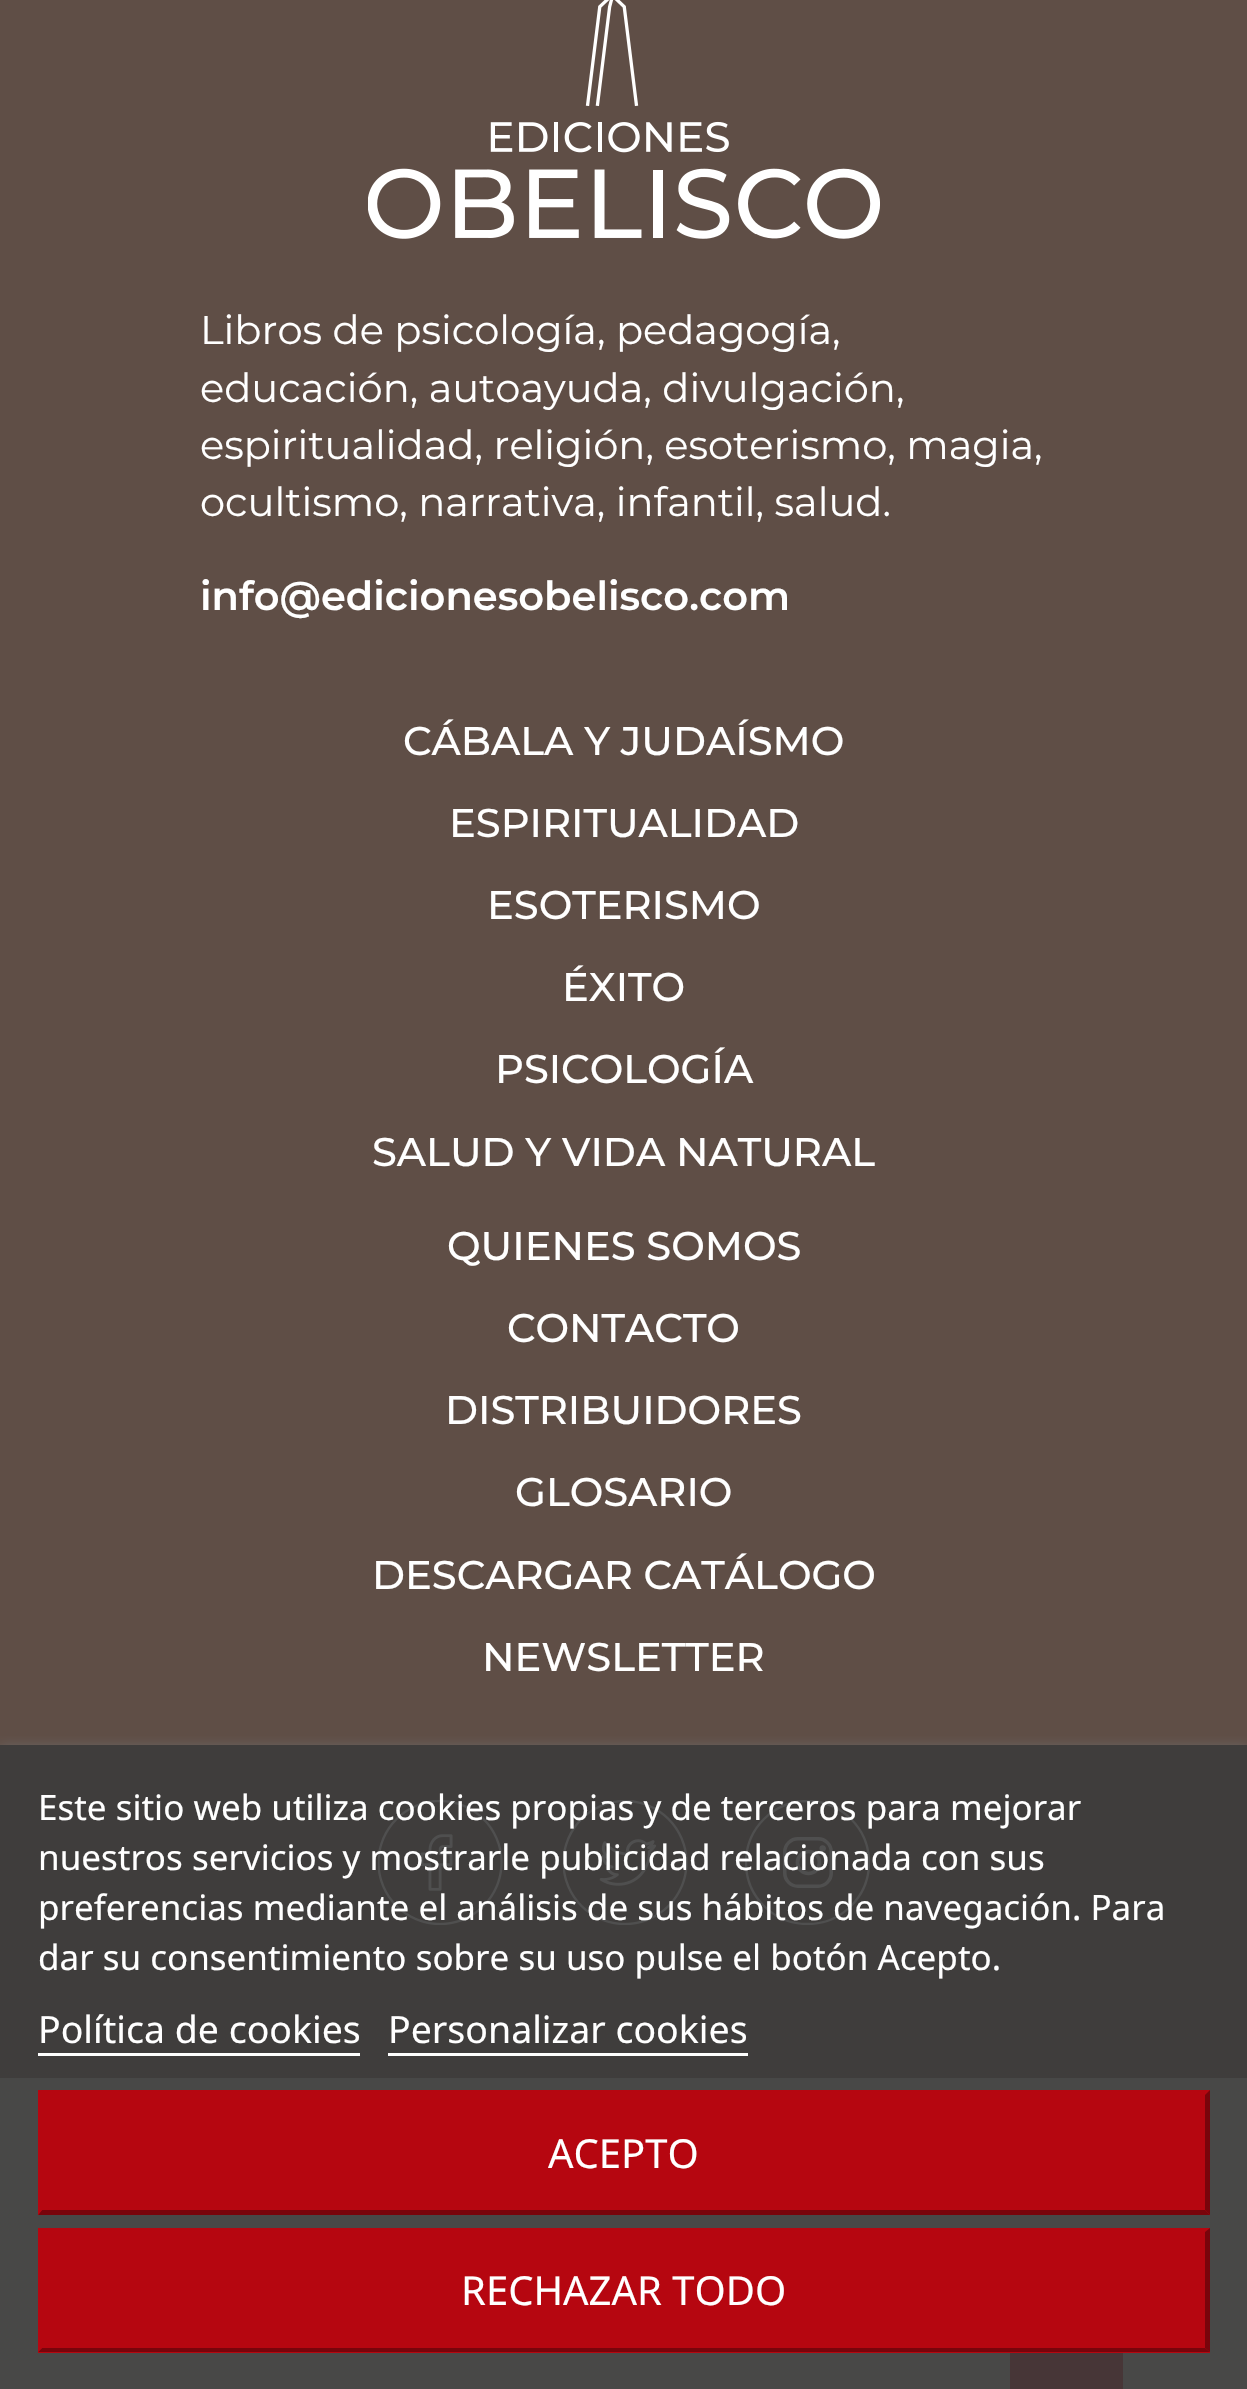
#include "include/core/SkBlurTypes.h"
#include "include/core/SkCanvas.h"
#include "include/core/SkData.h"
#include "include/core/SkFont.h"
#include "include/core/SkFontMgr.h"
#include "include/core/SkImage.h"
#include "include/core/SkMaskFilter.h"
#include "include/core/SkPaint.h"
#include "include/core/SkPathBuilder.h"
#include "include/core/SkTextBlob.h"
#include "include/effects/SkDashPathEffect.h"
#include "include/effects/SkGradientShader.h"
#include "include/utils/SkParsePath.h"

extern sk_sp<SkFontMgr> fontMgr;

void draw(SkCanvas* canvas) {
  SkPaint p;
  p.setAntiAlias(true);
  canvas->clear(SkColorSetRGB(95, 78, 70));
  p.setColor(SkColorSetRGB(63, 61, 60));
  canvas->drawRect(SkRect::MakeLTRB(0, 1745, 1247, 2078), p);
  canvas->drawImageRect(SkImages::DeferredFromEncodedData(SkData::MakeFromFileName("images/1.png")), SkRect::MakeLTRB(368, 0, 880, 239), SkSamplingOptions());
  canvas->drawImageRect(SkImages::DeferredFromEncodedData(SkData::MakeFromFileName("images/2.png")), SkRect::MakeLTRB(378, 1800, 503, 1925), SkSamplingOptions());
  canvas->drawImageRect(SkImages::DeferredFromEncodedData(SkData::MakeFromFileName("images/3.png")), SkRect::MakeLTRB(563, 1800, 688, 1925), SkSamplingOptions());
  p.setStyle(SkPaint::kStroke_Style);
  p.setStrokeWidth(3.5f);
  p.setColor(SkColorSetRGB(79, 79, 79));
  canvas->drawRoundRect(SkRect::MakeLTRB(784.75f, 1838.75f, 831.25f, 1886.25f), 13.25f, 13.25f, p);
  p.setStrokeWidth(3.7f);
  canvas->drawCircle(808.5f, 1862.5f, 11, p);
  p.setStyle(SkPaint::kFill_Style);
  canvas->drawPath(SkPathBuilder().moveTo(826, 1848.5f).cubicTo(826, 1852.5f, 819.5f, 1853, 819.5f, 1848.5f).cubicTo(819, 1844, 826, 1844, 826, 1848.5f).close().detach(), p);
  canvas->save();
  canvas->clipRect(SkRect::MakeLTRB(745, 1800, 870, 1925));
  p.setStyle(SkPaint::kStroke_Style);
  p.setStrokeWidth(2.3f);
  canvas->drawCircle(807.5f, 1862.5f, 61.5f, p);
  canvas->restore();
  p.setStyle(SkPaint::kFill_Style);
  p.setColor(SkColorSetRGB(72, 72, 71));
  canvas->drawRect(SkRect::MakeLTRB(0, 2078, 1247, 2389), p);
  p.setColor(SkColorSetRGB(71, 54, 55));
  canvas->drawRect(SkRect::MakeLTRB(1010, 2353, 1123, 2389), p);
  canvas->save();
  canvas->clipRect(SkRect::MakeLTRB(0, 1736, 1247, 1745));
  p.setColor(SkColorSetRGB(112, 112, 112));
  p.setMaskFilter(SkMaskFilter::MakeBlur(kNormal_SkBlurStyle, 6));
  canvas->drawRect(SkRect::MakeLTRB(0, 1748, 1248, 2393), p);
  p.setMaskFilter(nullptr);
  canvas->restore();
  p.setColor(SK_ColorWHITE);
  canvas->drawRect(SkRect::MakeLTRB(38, 2053, 360, 2056), p);
  canvas->drawRect(SkRect::MakeLTRB(388, 2053, 748, 2056), p);
  p.setColor(SkColorSetRGB(182, 6, 16));
  canvas->drawRect(SkRect::MakeLTRB(38, 2090, 1210, 2215), p);
  p.setColor(SkColorSetRGB(121, 4, 11));
  canvas->drawPath(SkPathBuilder().moveTo(1210, 2090).lineTo(1210, 2215).lineTo(1205, 2210).lineTo(1205, 2095).close().detach(), p);
  canvas->drawPath(SkPathBuilder().moveTo(1210, 2215).lineTo(38, 2215).lineTo(42, 2210).lineTo(1205, 2210).close().detach(), p);
  p.setColor(SkColorSetRGB(182, 6, 16));
  canvas->drawPath(SkPathBuilder().moveTo(38, 2215).lineTo(38, 2090).lineTo(42, 2095).lineTo(42, 2210).close().detach(), p);
  canvas->drawRect(SkRect::MakeLTRB(38, 2228, 1210, 2353), p);
  p.setColor(SkColorSetRGB(121, 4, 11));
  canvas->drawPath(SkPathBuilder().moveTo(1210, 2228).lineTo(1210, 2352).lineTo(1205, 2348).lineTo(1205, 2232).close().detach(), p);
  canvas->drawPath(SkPathBuilder().moveTo(1210, 2352).lineTo(38, 2352).lineTo(42, 2348).lineTo(1205, 2348).close().detach(), p);
  p.setColor(SkColorSetRGB(182, 6, 16));
  canvas->drawPath(SkPathBuilder().moveTo(38, 2352).lineTo(38, 2228).lineTo(42, 2232).lineTo(42, 2348).close().detach(), p);
  SkFont font1(fontMgr->matchFamilyStyle("Montserrat", SkFontStyle::Normal()), 40);
  font1.setSubpixel(true);
  p.setColor(SK_ColorWHITE);
  canvas->drawString("Libros de psicología, pedagogía,", 200, 344, font1, p);
  canvas->drawString("educación, autoayuda, divulgación,", 200, 402, font1, p);
  canvas->drawString("espiritualidad, religión, esoterismo, magia,", 200, 459, font1, p);
  canvas->drawString("ocultismo, narrativa, infantil, salud.", 200, 516, font1, p);
  SkFont font2(fontMgr->matchFamilyStyle("Montserrat", SkFontStyle(600, SkFontStyle::kNormal_Width, SkFontStyle::kUpright_Slant)), 40);
  font2.setSubpixel(true);
  canvas->drawString("info@edicionesobelisco.com", 200, 610, font2, p);
  SkFont font3(fontMgr->matchFamilyStyle("Montserrat", SkFontStyle(500, SkFontStyle::kNormal_Width, SkFontStyle::kUpright_Slant)), 40);
  font3.setSubpixel(true);
  canvas->drawString("CÁBALA Y JUDAÍSMO", 403, 755, font3, p);
  canvas->drawString("ESPIRITUALIDAD", 449, 837, font3, p);
  canvas->drawString("ESOTERISMO", 487, 919, font3, p);
  canvas->drawString("ÉXITO", 562, 1001, font3, p);
  canvas->drawString("PSICOLOGÍA", 495, 1083, font3, p);
  canvas->drawString("SALUD Y VIDA NATURAL", 372, 1166, font3, p);
  canvas->drawString("QUIENES SOMOS", 447, 1260, font3, p);
  canvas->drawString("CONTACTO", 507, 1342, font3, p);
  canvas->drawString("DISTRIBUIDORES", 445, 1424, font3, p);
  canvas->drawString("GLOSARIO", 515, 1506, font3, p);
  canvas->drawString("DESCARGAR CATÁLOGO", 372, 1589, font3, p);
  canvas->drawString("NEWSLETTER", 482, 1671, font3, p);
  SkFont font4(fontMgr->matchFamilyStyle("Noto Sans", SkFontStyle::Normal()), 35);
  font4.setSubpixel(true);
  canvas->drawString("Este sitio web utiliza cookies propias y de terceros para mejorar", 38, 1820, font4, p);
  canvas->drawString("nuestros servicios y mostrarle publicidad relacionada con sus", 38, 1870, font4, p);
  canvas->drawString("preferencias mediante el análisis de sus hábitos de navegación. Para", 38, 1920, font4, p);
  canvas->drawString("dar su consentimiento sobre su uso pulse el botón Acepto.", 38, 1970, font4, p);
  SkFont font5(fontMgr->matchFamilyStyle("Noto Sans", SkFontStyle::Normal()), 37.5f);
  font5.setSubpixel(true);
  canvas->drawString("Política de cookies", 38, 2043, font5, p);
  canvas->drawString("Personalizar cookies", 388, 2043, font5, p);
  SkFont font6(fontMgr->matchFamilyStyle("Noto Sans", SkFontStyle::Normal()), 40);
  font6.setSubpixel(true);
  canvas->drawString("ACEPTO", 548, 2168, font6, p);
  canvas->drawString("RECHAZAR TODO", 461, 2305, font6, p);
}
